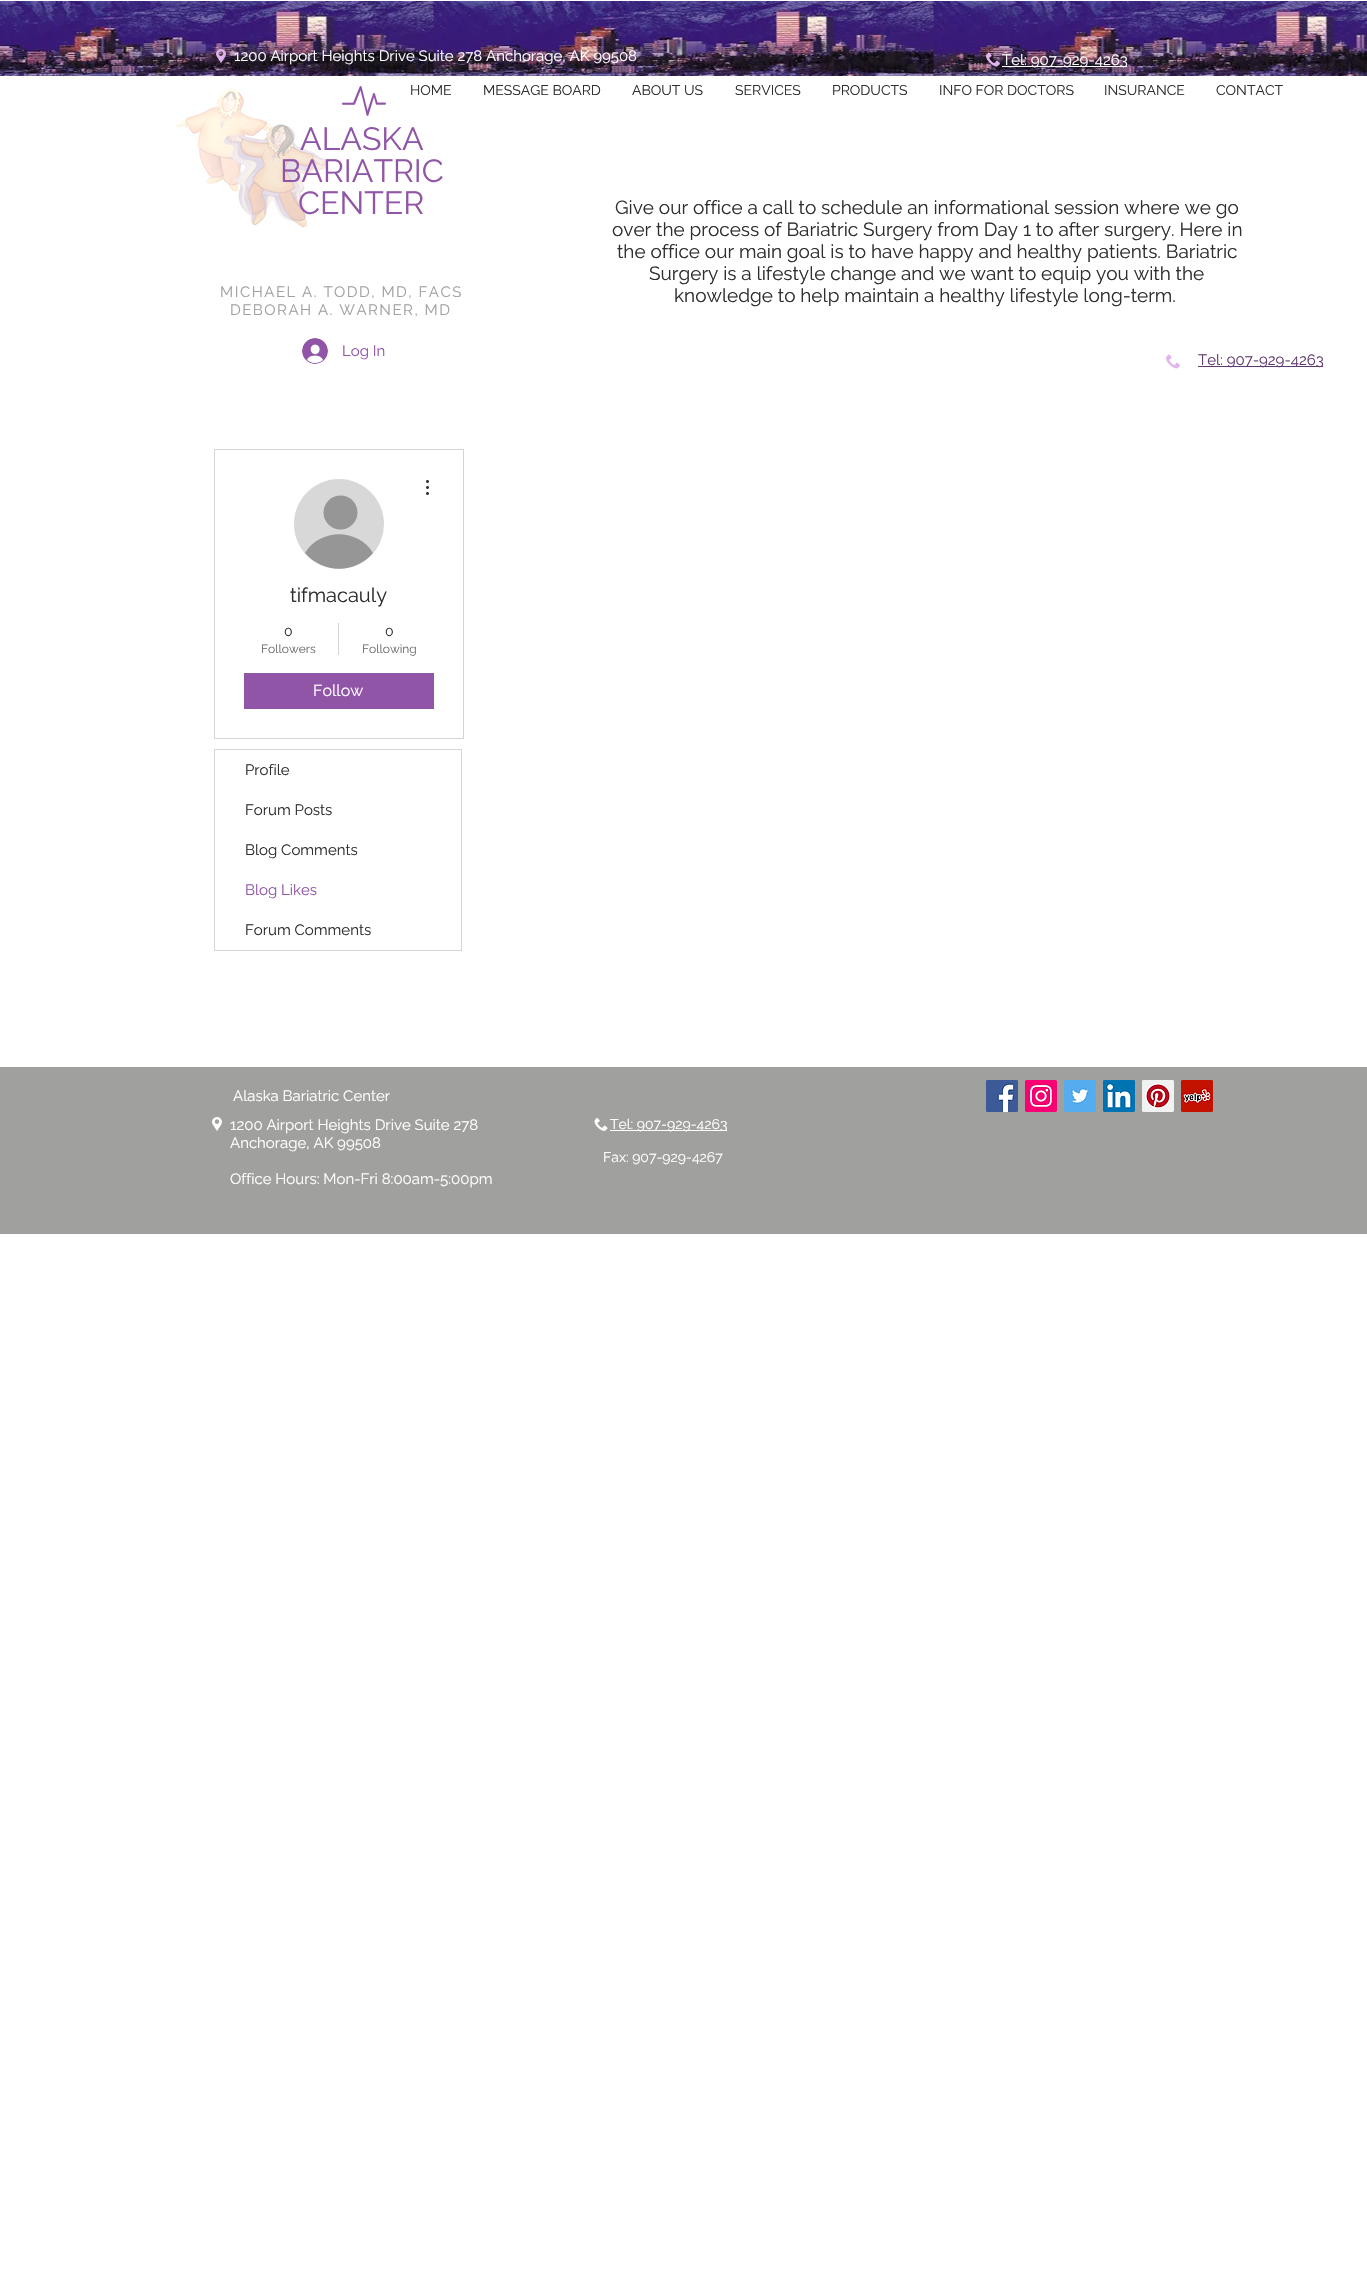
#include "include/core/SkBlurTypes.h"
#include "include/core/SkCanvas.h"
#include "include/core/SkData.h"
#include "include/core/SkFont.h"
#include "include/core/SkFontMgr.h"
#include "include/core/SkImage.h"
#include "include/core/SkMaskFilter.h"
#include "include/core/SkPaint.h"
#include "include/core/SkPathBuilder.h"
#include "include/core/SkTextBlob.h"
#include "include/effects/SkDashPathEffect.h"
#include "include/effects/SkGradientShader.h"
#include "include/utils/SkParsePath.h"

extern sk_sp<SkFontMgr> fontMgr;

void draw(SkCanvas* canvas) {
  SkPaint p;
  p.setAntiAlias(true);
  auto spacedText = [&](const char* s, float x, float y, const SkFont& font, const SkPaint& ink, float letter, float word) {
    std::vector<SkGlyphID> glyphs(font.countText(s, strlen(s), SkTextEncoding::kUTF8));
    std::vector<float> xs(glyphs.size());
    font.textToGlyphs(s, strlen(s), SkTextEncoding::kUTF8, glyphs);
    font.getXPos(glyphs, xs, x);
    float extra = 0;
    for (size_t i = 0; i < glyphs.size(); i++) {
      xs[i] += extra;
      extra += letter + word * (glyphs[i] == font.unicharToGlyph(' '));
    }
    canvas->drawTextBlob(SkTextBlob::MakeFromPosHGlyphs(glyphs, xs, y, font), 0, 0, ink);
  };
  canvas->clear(SK_ColorWHITE);
  canvas->drawImageRect(SkImages::DeferredFromEncodedData(SkData::MakeFromFileName("images/1.png")), SkRect::MakeLTRB(0, 1, 1367, 76), SkSamplingOptions());
  canvas->drawImageRect(SkImages::DeferredFromEncodedData(SkData::MakeFromFileName("images/2.png")), SkRect::MakeLTRB(216, 49, 226, 63), SkSamplingOptions());
  canvas->drawImageRect(SkImages::DeferredFromEncodedData(SkData::MakeFromFileName("images/3.png")), SkRect::MakeLTRB(986, 52, 1000, 67), SkSamplingOptions());
  p.setColor(SK_ColorWHITE);
  canvas->drawRect(SkRect::MakeLTRB(1002, 66, 1127, 67), p);
  canvas->drawImageRect(SkImages::DeferredFromEncodedData(SkData::MakeFromFileName("images/4.png")), SkRect::MakeLTRB(175, 88, 328, 228), SkSamplingOptions());
  canvas->drawImageRect(SkImages::DeferredFromEncodedData(SkData::MakeFromFileName("images/5.png")), SkRect::MakeLTRB(342, 86, 386, 116), SkSamplingOptions());
  canvas->drawImageRect(SkImages::DeferredFromEncodedData(SkData::MakeFromFileName("images/6.png")), SkRect::MakeLTRB(302, 338, 328, 364), SkSamplingOptions());
  canvas->drawImageRect(SkImages::DeferredFromEncodedData(SkData::MakeFromFileName("images/7.png")), SkRect::MakeLTRB(1166, 354, 1180, 369), SkSamplingOptions());
  p.setColor(SkColorSetRGB(97, 57, 111));
  canvas->drawRect(SkRect::MakeLTRB(1198, 366, 1323, 367), p);
  p.setStyle(SkPaint::kStroke_Style);
  p.setStrokeWidth(1);
  p.setColor(SkColorSetRGB(213, 213, 213));
  canvas->drawRect(SkRect::MakeLTRB(214.5f, 449.5f, 463.5f, 738.5f), p);
  p.setStyle(SkPaint::kFill_Style);
  p.setColor(SkColorSetRGB(216, 216, 216));
  canvas->drawCircle(339, 524, 45, p);
  p.setColor(SkColorSetRGB(150, 150, 150));
  canvas->drawCircle(340.5f, 512.5f, 17, p);
  canvas->drawPath(SkPathBuilder().moveTo(373, 553).cubicTo(355, 574, 323, 574, 305, 553).cubicTo(320, 528, 358, 528, 373, 553).close().detach(), p);
  canvas->drawImageRect(SkImages::DeferredFromEncodedData(SkData::MakeFromFileName("images/8.png")), SkRect::MakeLTRB(426, 480, 429, 495), SkSamplingOptions());
  p.setColor(SkColorSetRGB(213, 213, 213));
  canvas->drawRect(SkRect::MakeLTRB(338, 623, 339, 655), p);
  p.setColor(SkColorSetRGB(145, 85, 167));
  canvas->drawRect(SkRect::MakeLTRB(244, 673, 434, 709), p);
  p.setStyle(SkPaint::kStroke_Style);
  p.setColor(SkColorSetRGB(213, 213, 213));
  canvas->drawRect(SkRect::MakeLTRB(214.5f, 749.5f, 461.5f, 950.5f), p);
  p.setStyle(SkPaint::kFill_Style);
  p.setColor(SkColorSetRGB(160, 160, 159));
  canvas->drawRect(SkRect::MakeLTRB(0, 1067, 1367, 1234), p);
  canvas->drawImageRect(SkImages::DeferredFromEncodedData(SkData::MakeFromFileName("images/9.png")), SkRect::MakeLTRB(986, 1080, 1018, 1112), SkSamplingOptions());
  canvas->drawImageRect(SkImages::DeferredFromEncodedData(SkData::MakeFromFileName("images/10.png")), SkRect::MakeLTRB(1025, 1080, 1057, 1112), SkSamplingOptions());
  canvas->drawImageRect(SkImages::DeferredFromEncodedData(SkData::MakeFromFileName("images/11.png")), SkRect::MakeLTRB(1064, 1080, 1096, 1112), SkSamplingOptions());
  canvas->drawImageRect(SkImages::DeferredFromEncodedData(SkData::MakeFromFileName("images/12.png")), SkRect::MakeLTRB(1103, 1080, 1135, 1112), SkSamplingOptions());
  canvas->drawImageRect(SkImages::DeferredFromEncodedData(SkData::MakeFromFileName("images/13.png")), SkRect::MakeLTRB(1142, 1080, 1174, 1112), SkSamplingOptions());
  canvas->drawImageRect(SkImages::DeferredFromEncodedData(SkData::MakeFromFileName("images/14.png")), SkRect::MakeLTRB(1181, 1080, 1213, 1112), SkSamplingOptions());
  canvas->drawImageRect(SkImages::DeferredFromEncodedData(SkData::MakeFromFileName("images/15.png")), SkRect::MakeLTRB(212, 1117, 222, 1131), SkSamplingOptions());
  canvas->drawImageRect(SkImages::DeferredFromEncodedData(SkData::MakeFromFileName("images/16.png")), SkRect::MakeLTRB(594, 1118, 608, 1131), SkSamplingOptions());
  p.setColor(SK_ColorWHITE);
  canvas->drawRect(SkRect::MakeLTRB(610, 1130, 727, 1131), p);
  SkFont font1(fontMgr->matchFamilyStyle("Raleway", SkFontStyle::Normal()), 15);
  font1.setSubpixel(true);
  canvas->drawString("1200 Airport Heights Drive Suite 278 Anchorage, AK 99508", 234, 61, font1, p);
  canvas->drawString("Tel: 907-929-4263", 1002, 65, font1, p);
  SkFont font2(fontMgr->matchFamilyStyle("Raleway", SkFontStyle::Normal()), 14);
  font2.setSubpixel(true);
  p.setColor(SkColorSetRGB(47, 46, 46));
  canvas->drawString("HOME", 410, 95, font2, p);
  canvas->drawString("MESSAGE BOARD", 483, 95, font2, p);
  canvas->drawString("ABOUT US", 632, 95, font2, p);
  canvas->drawString("SERVICES", 735, 95, font2, p);
  canvas->drawString("PRODUCTS", 832, 95, font2, p);
  canvas->drawString("INFO FOR DOCTORS", 939, 95, font2, p);
  canvas->drawString("INSURANCE", 1104, 95, font2, p);
  canvas->drawString("CONTACT", 1216, 95, font2, p);
  SkFont font3(fontMgr->matchFamilyStyle("Raleway", SkFontStyle::Normal()), 32);
  font3.setSubpixel(true);
  p.setColor(SkColorSetRGB(145, 85, 167));
  canvas->drawString("ALASKA", 300, 150, font3, p);
  canvas->drawString("BARIATRIC", 280, 182, font3, p);
  canvas->drawString("CENTER", 298, 214, font3, p);
  p.setColor(SkColorSetRGB(160, 160, 159));
  spacedText("MICHAEL A. TODD, MD, FACS", 220, 297, font1, p, 1.5f, 0);
  spacedText("DEBORAH A. WARNER, MD", 230, 315, font1, p, 1.5f, 0);
  SkFont font4(fontMgr->matchFamilyStyle("Raleway", SkFontStyle::Normal()), 19);
  font4.setSubpixel(true);
  p.setColor(SkColorSetRGB(47, 46, 46));
  canvas->drawString("Give our office a call to schedule an informational session where we go", 615, 214, font4, p);
  canvas->drawString("over the process of Bariatric Surgery from Day 1 to after surgery. Here in", 612, 236, font4, p);
  canvas->drawString("the office our main goal is to have happy and healthy patients. Bariatric", 617, 258, font4, p);
  canvas->drawString("Surgery is a lifestyle change and we want to equip you with the", 649, 280, font4, p);
  canvas->drawString("knowledge to help maintain a healthy lifestyle long-term.", 674, 302, font4, p);
  p.setColor(SkColorSetRGB(145, 85, 167));
  canvas->drawString("Log In", 342, 356, font1, p);
  p.setColor(SkColorSetRGB(97, 57, 111));
  canvas->drawString("Tel: 907-929-4263", 1198, 365, font1, p);
  SkFont font5(fontMgr->matchFamilyStyle("Raleway", SkFontStyle::Normal()), 20);
  font5.setSubpixel(true);
  p.setColor(SkColorSetRGB(47, 46, 46));
  canvas->drawString("tifmacauly", 290, 602, font5, p);
  canvas->drawString("0", 284, 636, font2, p);
  SkFont font6(fontMgr->matchFamilyStyle("Raleway", SkFontStyle::Normal()), 12);
  font6.setSubpixel(true);
  p.setColor(SkColorSetRGB(109, 109, 109));
  canvas->drawString("Followers", 261, 653, font6, p);
  p.setColor(SkColorSetRGB(47, 46, 46));
  canvas->drawString("0", 385, 636, font2, p);
  p.setColor(SkColorSetRGB(109, 109, 109));
  canvas->drawString("Following", 362, 653, font6, p);
  SkFont font7(fontMgr->matchFamilyStyle("Raleway", SkFontStyle::Normal()), 16);
  font7.setSubpixel(true);
  p.setColor(SK_ColorWHITE);
  canvas->drawString("Follow", 313, 696, font7, p);
  p.setColor(SkColorSetRGB(47, 46, 46));
  canvas->drawString("Profile", 245, 775, font1, p);
  canvas->drawString("Forum Posts", 245, 815, font1, p);
  canvas->drawString("Blog Comments", 245, 855, font1, p);
  p.setColor(SkColorSetRGB(145, 85, 167));
  canvas->drawString("Blog Likes", 245, 895, font1, p);
  p.setColor(SkColorSetRGB(47, 46, 46));
  canvas->drawString("Forum Comments", 245, 935, font1, p);
  p.setColor(SK_ColorWHITE);
  canvas->drawString("Alaska Bariatric Center", 233, 1101, font1, p);
  canvas->drawString("1200 Airport Heights Drive Suite 278", 230, 1130, font1, p);
  canvas->drawString("Anchorage, AK 99508", 230, 1148, font1, p);
  canvas->drawString("Office Hours: Mon-Fri 8:00am-5:00pm", 230, 1184, font1, p);
  canvas->drawString("Tel: 907-929-4263", 610, 1129, font2, p);
  canvas->drawString("Fax: 907-929-4267", 603, 1162, font2, p);
}
